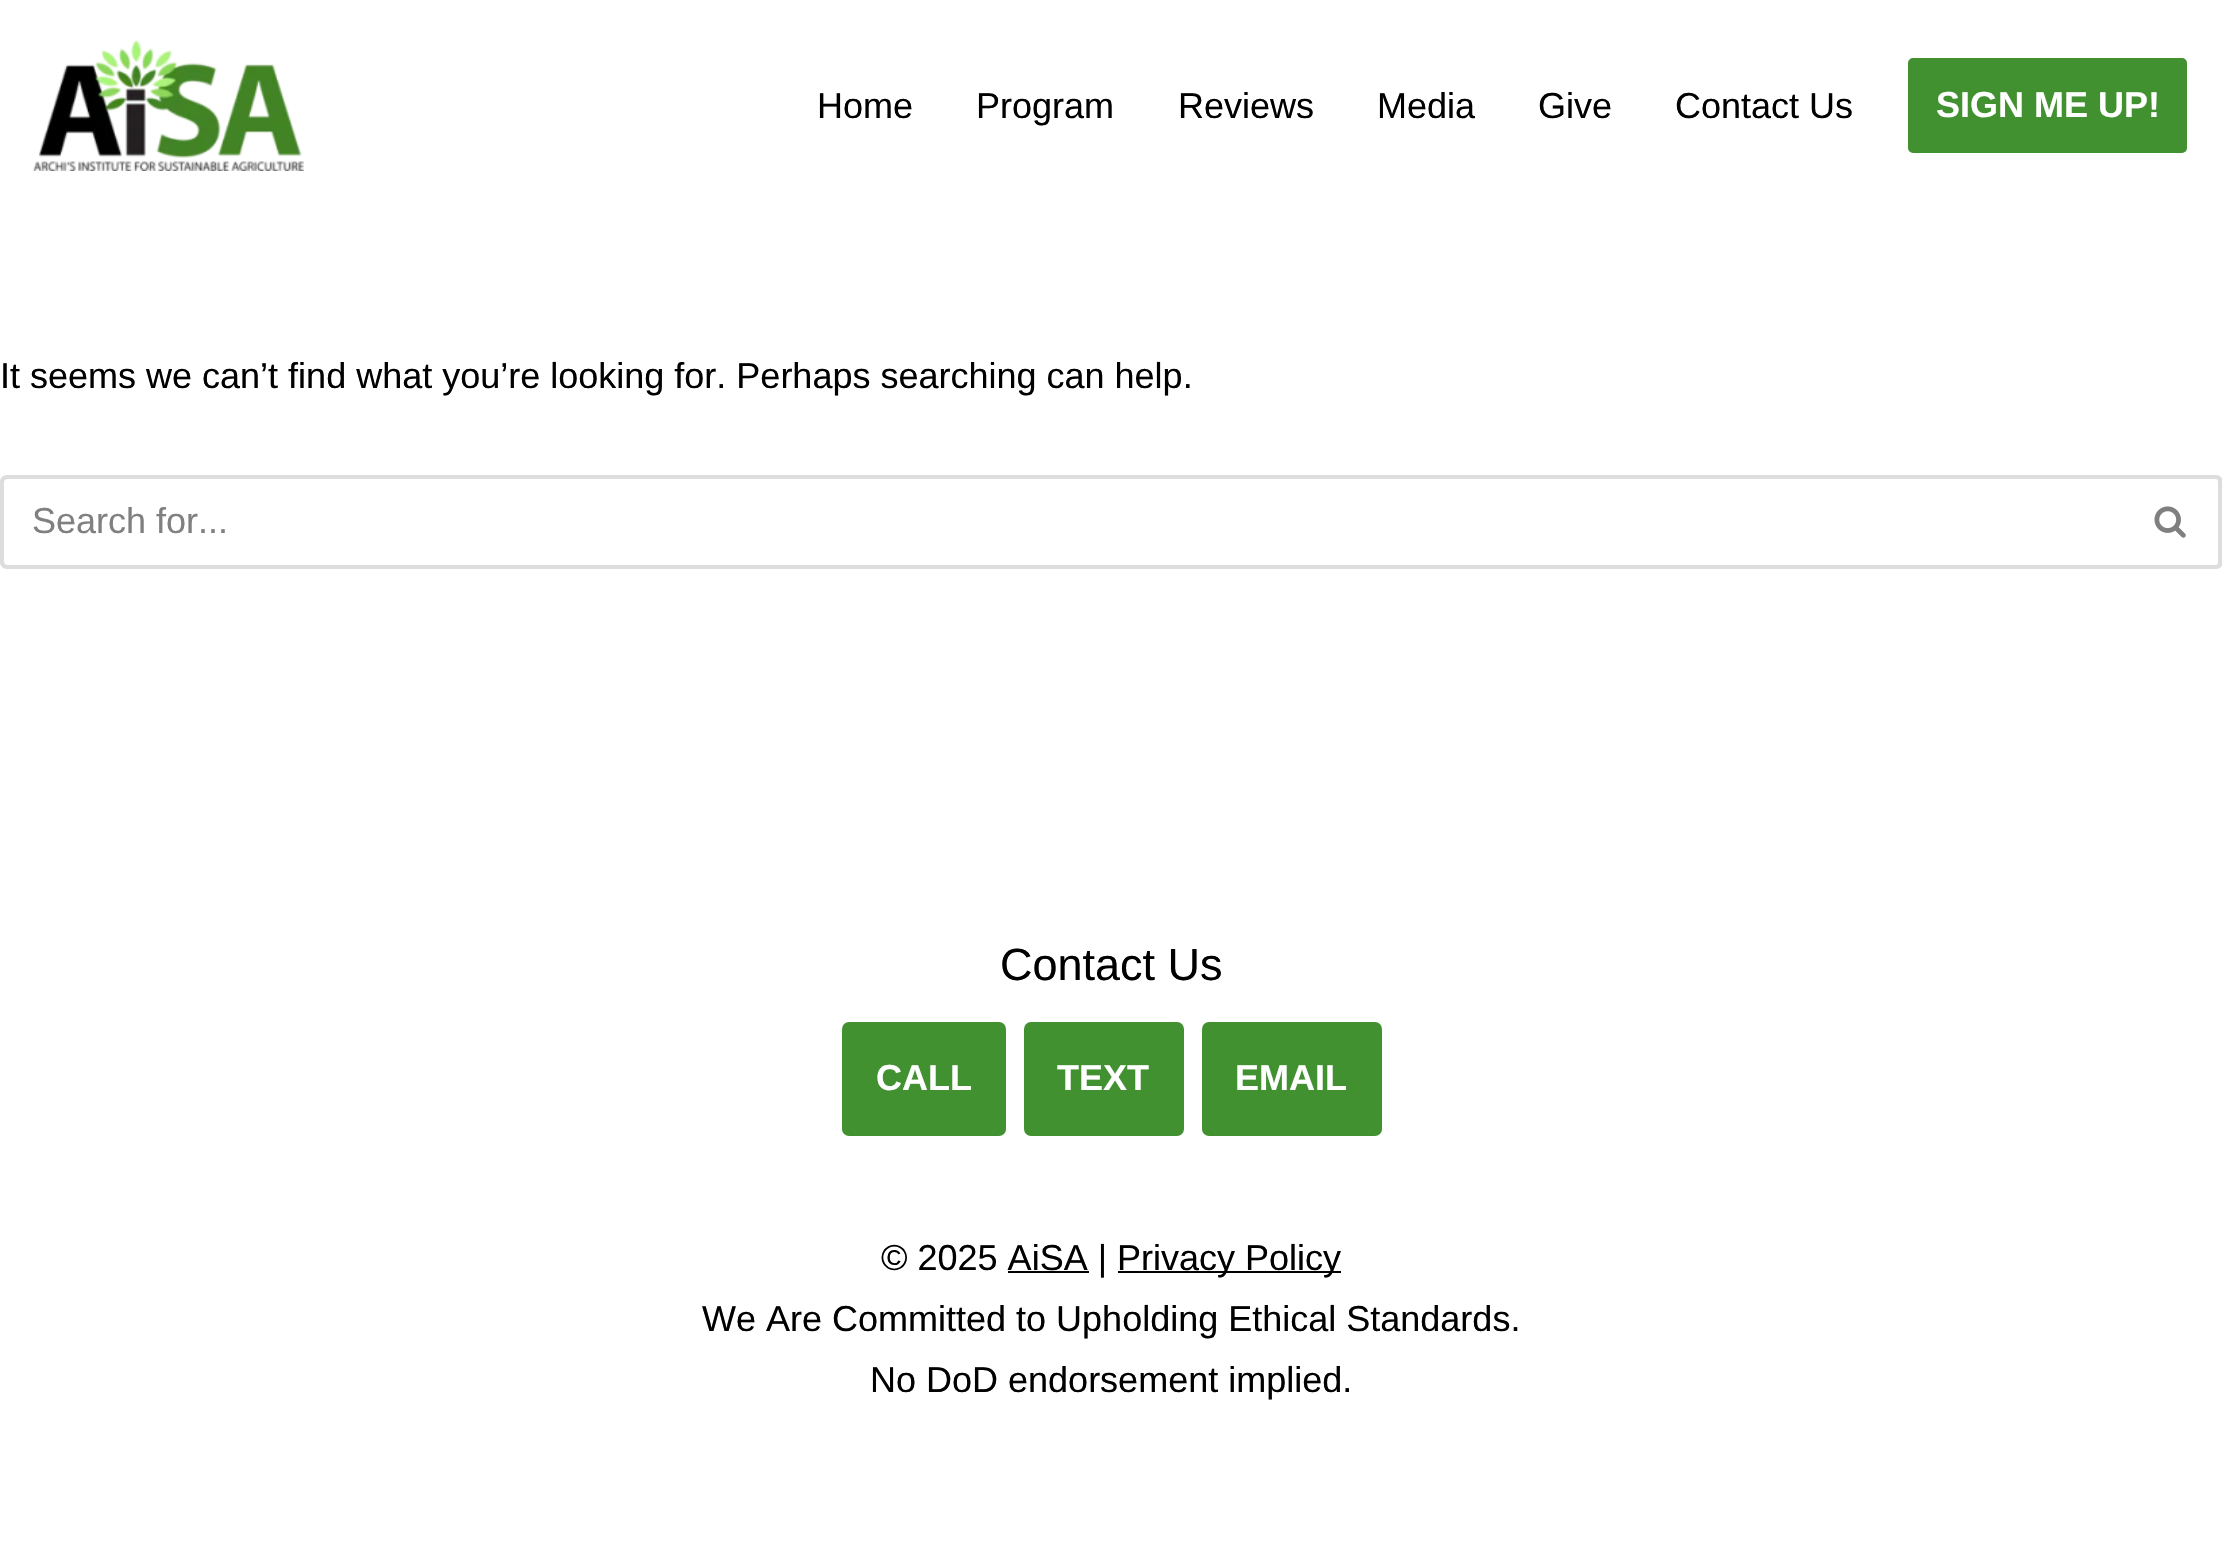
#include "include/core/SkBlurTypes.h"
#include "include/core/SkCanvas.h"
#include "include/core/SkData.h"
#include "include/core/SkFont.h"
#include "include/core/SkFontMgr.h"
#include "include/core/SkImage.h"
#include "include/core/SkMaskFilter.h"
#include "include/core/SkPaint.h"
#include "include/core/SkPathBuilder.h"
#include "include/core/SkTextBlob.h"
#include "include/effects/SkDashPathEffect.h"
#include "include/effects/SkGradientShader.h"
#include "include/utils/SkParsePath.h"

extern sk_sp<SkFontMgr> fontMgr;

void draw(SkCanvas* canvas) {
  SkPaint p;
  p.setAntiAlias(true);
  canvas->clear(SK_ColorWHITE);
  canvas->drawImageRect(SkImages::DeferredFromEncodedData(SkData::MakeFromFileName("images/1.png")), SkRect::MakeLTRB(33, 40, 304, 171), SkSamplingOptions());
  p.setColor(SkColorSetRGB(65, 145, 49));
  canvas->drawRoundRect(SkRect::MakeLTRB(1907, 57, 2188, 154), 6, 6, p);
  p.setStyle(SkPaint::kStroke_Style);
  p.setStrokeWidth(2);
  p.setColor(SK_ColorWHITE);
  canvas->drawRoundRect(SkRect::MakeLTRB(1907, 57, 2188, 154), 6, 6, p);
  p.setStyle(SkPaint::kFill_Style);
  p.setColor(SkColorSetRGB(221, 221, 221));
  canvas->drawPath(SkPathBuilder(SkPathFillType::kEvenOdd).moveTo(7, 475).lineTo(2122, 475).lineTo(2122, 569).lineTo(7, 569).cubicTo(3, 569, 0, 566, 0, 562).lineTo(0, 482).cubicTo(0, 478, 3, 475, 7, 475).close().moveTo(7, 479).lineTo(2122, 479).lineTo(2122, 565).lineTo(7, 565).cubicTo(6, 565, 4, 564, 4, 562).lineTo(4, 482).cubicTo(4, 480, 6, 479, 7, 479).close().detach(), p);
  canvas->drawPath(SkPathBuilder(SkPathFillType::kEvenOdd).moveTo(2122, 475).lineTo(2216, 475).cubicTo(2220, 475, 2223, 478, 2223, 482).lineTo(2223, 562).cubicTo(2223, 566, 2220, 569, 2216, 569).lineTo(2122, 569).close().moveTo(2122, 479).lineTo(2216, 479).cubicTo(2217, 479, 2218, 480, 2218, 482).lineTo(2218, 562).cubicTo(2218, 564, 2217, 565, 2216, 565).lineTo(2122, 565).close().detach(), p);
  canvas->drawImageRect(SkImages::DeferredFromEncodedData(SkData::MakeFromFileName("images/2.png")), SkRect::MakeLTRB(2154, 506, 2186, 538), SkSamplingOptions());
  p.setColor(SkColorSetRGB(65, 145, 49));
  canvas->drawRoundRect(SkRect::MakeLTRB(842, 1022, 1006, 1136), 7, 7, p);
  canvas->drawRoundRect(SkRect::MakeLTRB(1024, 1022, 1184, 1136), 7, 7, p);
  canvas->drawRoundRect(SkRect::MakeLTRB(1202, 1022, 1382, 1136), 7, 7, p);
  p.setColor(SK_ColorBLACK);
  canvas->drawRect(SkRect::MakeLTRB(1118, 1271, 1341, 1273), p);
  canvas->drawRect(SkRect::MakeLTRB(1008, 1271, 1089, 1273), p);
  SkFont font1(fontMgr->matchFamilyStyle("Liberation Sans", SkFontStyle::Normal()), 36);
  font1.setSubpixel(true);
  canvas->drawString("Home", 817, 118, font1, p);
  canvas->drawString("Program", 976, 118, font1, p);
  canvas->drawString("Reviews", 1178, 118, font1, p);
  canvas->drawString("Media", 1377, 118, font1, p);
  canvas->drawString("Give", 1538, 118, font1, p);
  canvas->drawString("Contact Us", 1675, 118, font1, p);
  SkFont font2(fontMgr->matchFamilyStyle("Liberation Sans", SkFontStyle::Bold()), 36);
  font2.setSubpixel(true);
  p.setColor(SK_ColorWHITE);
  canvas->drawString("SIGN ME UP!", 1936, 117, font2, p);
  p.setColor(SK_ColorBLACK);
  canvas->drawString("It seems we can’t find what you’re looking for. Perhaps searching can help.", 0, 388, font1, p);
  p.setColor(SkColorSetRGB(128, 128, 128));
  canvas->drawString("Search for...", 32, 533, font1, p);
  SkFont font3(fontMgr->matchFamilyStyle("Liberation Sans", SkFontStyle::Normal()), 45);
  font3.setSubpixel(true);
  p.setColor(SK_ColorBLACK);
  canvas->drawString("Contact Us", 1000, 980, font3, p);
  p.setColor(SK_ColorWHITE);
  canvas->drawString("CALL", 876, 1090, font2, p);
  canvas->drawString("TEXT", 1057, 1090, font2, p);
  canvas->drawString("EMAIL", 1235, 1090, font2, p);
  p.setColor(SK_ColorBLACK);
  canvas->drawString("© 2025 AiSA |", 881, 1270, font1, p);
  canvas->drawString("Privacy Policy", 1117, 1270, font1, p);
  canvas->drawString("We Are Committed to Upholding Ethical Standards.", 702, 1331, font1, p);
  canvas->drawString("No DoD endorsement implied.", 870, 1392, font1, p);
}
